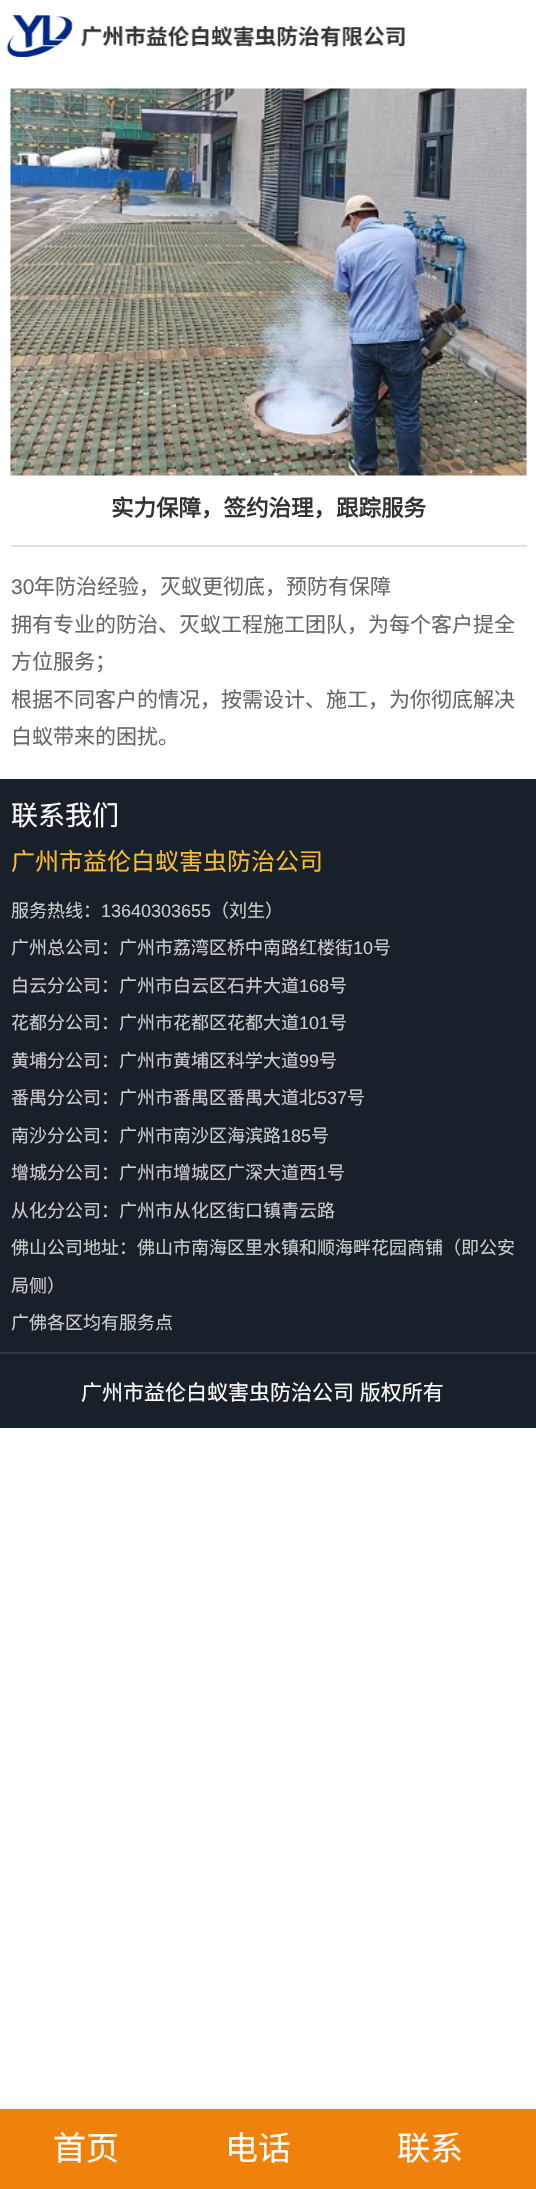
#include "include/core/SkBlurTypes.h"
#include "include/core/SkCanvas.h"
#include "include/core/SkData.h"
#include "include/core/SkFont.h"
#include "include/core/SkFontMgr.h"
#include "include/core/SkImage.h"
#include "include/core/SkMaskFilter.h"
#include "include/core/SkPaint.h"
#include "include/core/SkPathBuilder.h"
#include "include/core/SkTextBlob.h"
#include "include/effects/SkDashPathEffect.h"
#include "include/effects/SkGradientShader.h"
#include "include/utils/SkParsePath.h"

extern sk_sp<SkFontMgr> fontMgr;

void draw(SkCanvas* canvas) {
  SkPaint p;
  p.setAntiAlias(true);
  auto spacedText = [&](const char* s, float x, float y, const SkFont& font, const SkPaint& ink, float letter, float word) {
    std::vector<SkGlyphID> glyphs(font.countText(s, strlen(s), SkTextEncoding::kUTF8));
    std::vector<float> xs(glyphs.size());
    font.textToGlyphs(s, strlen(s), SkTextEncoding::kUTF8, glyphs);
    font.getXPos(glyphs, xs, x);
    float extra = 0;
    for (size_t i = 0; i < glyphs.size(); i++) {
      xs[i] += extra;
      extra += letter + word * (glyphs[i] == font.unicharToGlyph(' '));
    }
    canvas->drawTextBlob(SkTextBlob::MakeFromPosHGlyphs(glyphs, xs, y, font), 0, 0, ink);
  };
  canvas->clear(SK_ColorWHITE);
  canvas->drawImageRect(SkImages::DeferredFromEncodedData(SkData::MakeFromFileName("images/1.png")), SkRect::MakeLTRB(7, 15, 405, 57), SkSamplingOptions());
  canvas->drawImageRect(SkImages::DeferredFromEncodedData(SkData::MakeFromFileName("images/2.png")), SkRect::MakeLTRB(10, 88, 527, 476), SkSamplingOptions());
  p.setColor(SkColorSetRGB(228, 228, 228));
  canvas->drawRect(SkRect::MakeLTRB(11, 545, 527, 547), p);
  p.setColor(SkColorSetRGB(24, 32, 41));
  canvas->drawRect(SkRect::MakeLTRB(0, 779, 536, 1428), p);
  p.setColor(SkColorSetRGB(48, 55, 63));
  canvas->drawRect(SkRect::MakeLTRB(0, 1352, 536, 1354), p);
  p.setColor(SkColorSetRGB(240, 129, 10));
  canvas->drawRect(SkRect::MakeLTRB(0, 2109, 536, 2189), p);
  SkFont font1(fontMgr->matchFamilyStyle("Noto Sans CJK SC", SkFontStyle::Bold()), 22.5f);
  font1.setSubpixel(true);
  p.setColor(SkColorSetRGB(51, 51, 51));
  canvas->drawString("实力保障，签约治理，跟踪服务", 111, 516, font1, p);
  SkFont font2(fontMgr->matchFamilyStyle("Liberation Sans", SkFontStyle::Normal()), 21);
  font2.setSubpixel(true);
  p.setColor(SkColorSetRGB(102, 102, 102));
  canvas->drawString("30", 11, 594, font2, p);
  SkFont font3(fontMgr->matchFamilyStyle("Noto Sans CJK SC", SkFontStyle::Normal()), 21);
  font3.setSubpixel(true);
  canvas->drawString("年防治经验，灭蚁更彻底，预防有保障", 34, 594, font3, p);
  canvas->drawString("拥有专业的防治、灭蚁工程施工团队，为每个客户提全", 11, 632, font3, p);
  canvas->drawString("方位服务；", 11, 669, font3, p);
  canvas->drawString("根据不同客户的情况，按需设计、施工，为你彻底解决", 11, 707, font3, p);
  canvas->drawString("白蚁带来的困扰。", 11, 744, font3, p);
  SkFont font4(fontMgr->matchFamilyStyle("Noto Sans CJK SC", SkFontStyle::Normal()), 27);
  font4.setSubpixel(true);
  p.setColor(SK_ColorWHITE);
  canvas->drawString("联系我们", 11, 825, font4, p);
  SkFont font5(fontMgr->matchFamilyStyle("Noto Sans CJK SC", SkFontStyle::Normal()), 24);
  font5.setSubpixel(true);
  p.setColor(SkColorSetRGB(248, 187, 47));
  canvas->drawString("广州市益伦白蚁害虫防治公司", 11, 870, font5, p);
  SkFont font6(fontMgr->matchFamilyStyle("Noto Sans CJK SC", SkFontStyle::Normal()), 18);
  font6.setSubpixel(true);
  p.setColor(SkColorSetRGB(204, 204, 204));
  canvas->drawString("服务热线：", 11, 917, font6, p);
  SkFont font7(fontMgr->matchFamilyStyle("Liberation Sans", SkFontStyle::Normal()), 18);
  font7.setSubpixel(true);
  canvas->drawString("13640303655", 101, 917, font7, p);
  canvas->drawString("（刘生）", 211, 917, font6, p);
  canvas->drawString("广州总公司：广州市荔湾区桥中南路红楼街", 11, 954, font6, p);
  canvas->drawString("10", 353, 954, font7, p);
  canvas->drawString("号", 373, 954, font6, p);
  canvas->drawString("白云分公司：广州市白云区石井大道", 11, 992, font6, p);
  canvas->drawString("168", 299, 992, font7, p);
  canvas->drawString("号", 329, 992, font6, p);
  canvas->drawString("花都分公司：广州市花都区花都大道", 11, 1029, font6, p);
  canvas->drawString("101", 299, 1029, font7, p);
  canvas->drawString("号", 329, 1029, font6, p);
  canvas->drawString("黄埔分公司：广州市黄埔区科学大道", 11, 1067, font6, p);
  canvas->drawString("99", 299, 1067, font7, p);
  canvas->drawString("号", 319, 1067, font6, p);
  canvas->drawString("番禺分公司：广州市番禺区番禺大道北", 11, 1104, font6, p);
  canvas->drawString("537", 317, 1104, font7, p);
  canvas->drawString("号", 347, 1104, font6, p);
  canvas->drawString("南沙分公司：广州市南沙区海滨路", 11, 1142, font6, p);
  canvas->drawString("185", 281, 1142, font7, p);
  canvas->drawString("号", 311, 1142, font6, p);
  canvas->drawString("增城分公司：广州市增城区广深大道西", 11, 1179, font6, p);
  canvas->drawString("1", 317, 1179, font7, p);
  canvas->drawString("号", 327, 1179, font6, p);
  canvas->drawString("从化分公司：广州市从化区街口镇青云路", 11, 1217, font6, p);
  canvas->drawString("佛山公司地址：佛山市南海区里水镇和顺海畔花园商铺（即公安", 11, 1254, font6, p);
  canvas->drawString("局侧）", 11, 1292, font6, p);
  canvas->drawString("广佛各区均有服务点", 11, 1329, font6, p);
  p.setColor(SK_ColorWHITE);
  spacedText("广州市益伦白蚁害虫防治公司 版权所有", 81, 1400, font3, p, 0, 1);
  SkFont font8(fontMgr->matchFamilyStyle("Noto Sans CJK SC", SkFontStyle::Normal()), 33);
  font8.setSubpixel(true);
  canvas->drawString("首页", 53, 2160, font8, p);
  canvas->drawString("电话", 225, 2160, font8, p);
  canvas->drawString("联系", 397, 2160, font8, p);
}
